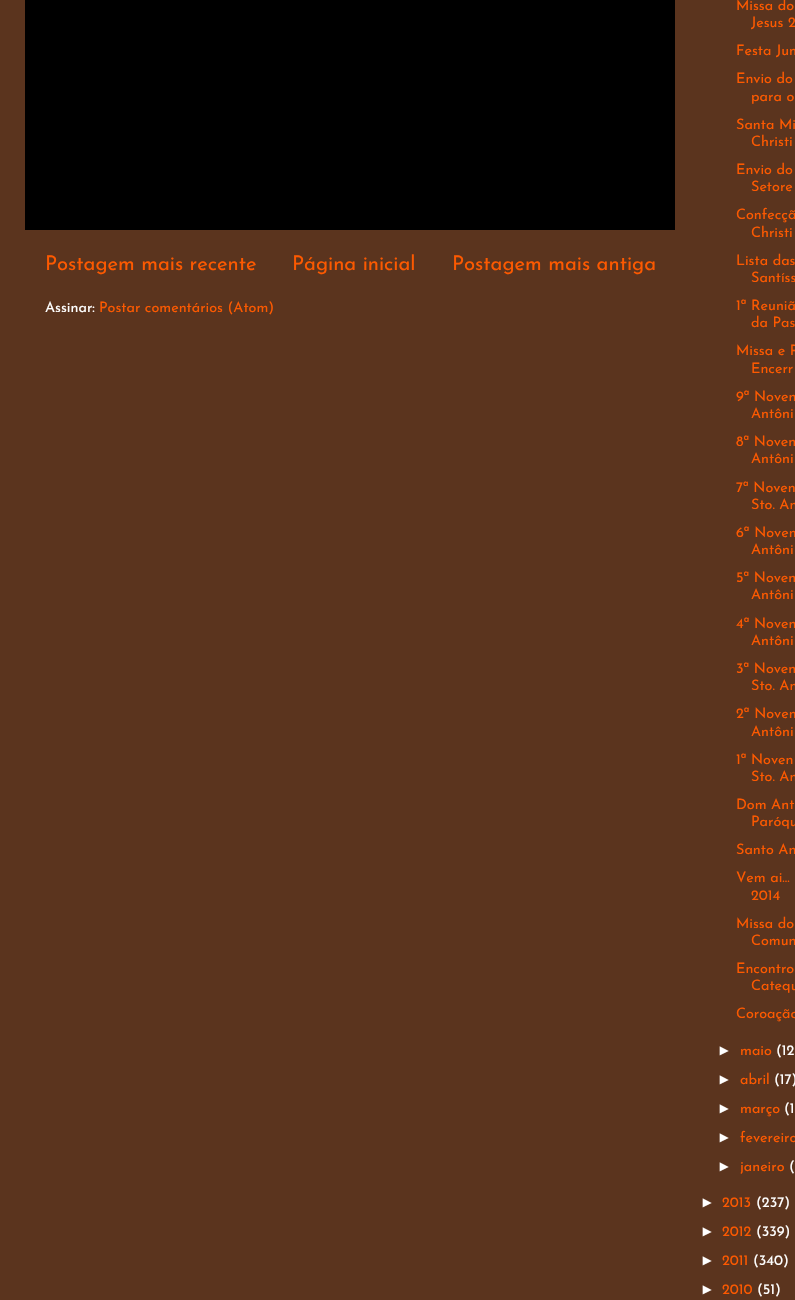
#include "include/core/SkBlurTypes.h"
#include "include/core/SkCanvas.h"
#include "include/core/SkData.h"
#include "include/core/SkFont.h"
#include "include/core/SkFontMgr.h"
#include "include/core/SkImage.h"
#include "include/core/SkMaskFilter.h"
#include "include/core/SkPaint.h"
#include "include/core/SkPathBuilder.h"
#include "include/core/SkTextBlob.h"
#include "include/effects/SkDashPathEffect.h"
#include "include/effects/SkGradientShader.h"
#include "include/utils/SkParsePath.h"

extern sk_sp<SkFontMgr> fontMgr;

void draw(SkCanvas* canvas) {
  SkPaint p;
  p.setAntiAlias(true);
  canvas->clear(SkColorSetRGB(91, 52, 30));
  p.setColor(SK_ColorBLACK);
  canvas->drawRect(SkRect::MakeLTRB(25, 0, 675, 230), p);
  SkFont font1(fontMgr->matchFamilyStyle("Josefin Sans", SkFontStyle(100, SkFontStyle::kNormal_Width, SkFontStyle::kUpright_Slant)), 20.25f);
  font1.setSubpixel(true);
  p.setColor(SkColorSetRGB(253, 89, 0));
  canvas->drawString("Postagem mais recente", 45, 270, font1, p);
  canvas->drawString("Página inicial", 292, 270, font1, p);
  canvas->drawString("Postagem mais antiga", 452, 270, font1, p);
  SkFont font2(fontMgr->matchFamilyStyle("Josefin Sans", SkFontStyle(100, SkFontStyle::kNormal_Width, SkFontStyle::kUpright_Slant)), 14.4f);
  font2.setSubpixel(true);
  p.setColor(SK_ColorWHITE);
  canvas->drawString("Assinar:", 45, 312, font2, p);
  p.setColor(SkColorSetRGB(253, 89, 0));
  canvas->drawString("Postar comentários (Atom)", 99, 312, font2, p);
  canvas->drawString("Missa do", 736, 10, font2, p);
  canvas->drawString("Jesus 2", 751, 27, font2, p);
  canvas->drawString("Festa Jun", 736, 55, font2, p);
  canvas->drawString("Envio do", 736, 83, font2, p);
  canvas->drawString("para o", 751, 101, font2, p);
  canvas->drawString("Santa Mi", 736, 129, font2, p);
  canvas->drawString("Christi", 751, 146, font2, p);
  canvas->drawString("Envio do", 736, 174, font2, p);
  canvas->drawString("Setore", 751, 191, font2, p);
  canvas->drawString("Confecçã", 736, 219, font2, p);
  canvas->drawString("Christi", 751, 237, font2, p);
  canvas->drawString("Lista das", 736, 265, font2, p);
  canvas->drawString("Santíss", 751, 282, font2, p);
  canvas->drawString("1ª Reuniã", 736, 310, font2, p);
  canvas->drawString("da Pas", 751, 327, font2, p);
  canvas->drawString("Missa e P", 736, 355, font2, p);
  canvas->drawString("Encerr", 751, 373, font2, p);
  canvas->drawString("9ª Noven", 736, 401, font2, p);
  canvas->drawString("Antôni", 751, 418, font2, p);
  canvas->drawString("8ª Noven", 736, 446, font2, p);
  canvas->drawString("Antôni", 751, 463, font2, p);
  canvas->drawString("7ª Noven", 736, 492, font2, p);
  canvas->drawString("Sto. An", 751, 509, font2, p);
  canvas->drawString("6ª Noven", 736, 537, font2, p);
  canvas->drawString("Antôni", 751, 554, font2, p);
  canvas->drawString("5ª Noven", 736, 582, font2, p);
  canvas->drawString("Antôni", 751, 599, font2, p);
  canvas->drawString("4ª Noven", 736, 628, font2, p);
  canvas->drawString("Antôni", 751, 645, font2, p);
  canvas->drawString("3ª Noven", 736, 673, font2, p);
  canvas->drawString("Sto. An", 751, 690, font2, p);
  canvas->drawString("2ª Noven", 736, 718, font2, p);
  canvas->drawString("Antôni", 751, 736, font2, p);
  canvas->drawString("1ª Noven", 736, 764, font2, p);
  canvas->drawString("Sto. An", 751, 781, font2, p);
  canvas->drawString("Dom Ant", 736, 809, font2, p);
  canvas->drawString("Paróqu", 751, 826, font2, p);
  canvas->drawString("Santo An", 736, 854, font2, p);
  canvas->drawString("Vem ai...", 736, 882, font2, p);
  canvas->drawString("2014", 751, 900, font2, p);
  canvas->drawString("Missa do", 736, 928, font2, p);
  canvas->drawString("Comun", 751, 945, font2, p);
  canvas->drawString("Encontro", 736, 973, font2, p);
  canvas->drawString("Catequ", 751, 990, font2, p);
  canvas->drawString("Coroação", 736, 1018, font2, p);
  SkFont font3(fontMgr->matchFamilyStyle("Liberation Sans", SkFontStyle::Normal()), 14.4f);
  font3.setSubpixel(true);
  p.setColor(SK_ColorWHITE);
  canvas->drawString("►", 717, 1055, font3, p);
  p.setColor(SkColorSetRGB(253, 89, 0));
  canvas->drawString("maio", 740, 1055, font2, p);
  p.setColor(SK_ColorWHITE);
  canvas->drawString("(12", 776, 1055, font2, p);
  canvas->drawString("►", 717, 1084, font3, p);
  p.setColor(SkColorSetRGB(253, 89, 0));
  canvas->drawString("abril", 740, 1084, font2, p);
  p.setColor(SK_ColorWHITE);
  canvas->drawString("(17)", 774, 1084, font2, p);
  canvas->drawString("►", 717, 1113, font3, p);
  p.setColor(SkColorSetRGB(253, 89, 0));
  canvas->drawString("março", 740, 1113, font2, p);
  p.setColor(SK_ColorWHITE);
  canvas->drawString("(1", 784, 1113, font2, p);
  canvas->drawString("►", 717, 1142, font3, p);
  p.setColor(SkColorSetRGB(253, 89, 0));
  canvas->drawString("fevereiro", 740, 1142, font2, p);
  p.setColor(SK_ColorWHITE);
  canvas->drawString("►", 717, 1171, font3, p);
  p.setColor(SkColorSetRGB(253, 89, 0));
  canvas->drawString("janeiro", 740, 1171, font2, p);
  p.setColor(SK_ColorWHITE);
  canvas->drawString("(", 789, 1171, font2, p);
  canvas->drawString("►", 700, 1207, font3, p);
  p.setColor(SkColorSetRGB(253, 89, 0));
  canvas->drawString("2013", 722, 1207, font2, p);
  p.setColor(SK_ColorWHITE);
  canvas->drawString("(237)", 756, 1207, font2, p);
  canvas->drawString("►", 700, 1236, font3, p);
  p.setColor(SkColorSetRGB(253, 89, 0));
  canvas->drawString("2012", 722, 1236, font2, p);
  p.setColor(SK_ColorWHITE);
  canvas->drawString("(339)", 756, 1236, font2, p);
  canvas->drawString("►", 700, 1265, font3, p);
  p.setColor(SkColorSetRGB(253, 89, 0));
  canvas->drawString("2011", 722, 1265, font2, p);
  p.setColor(SK_ColorWHITE);
  canvas->drawString("(340)", 753, 1265, font2, p);
  canvas->drawString("►", 700, 1294, font3, p);
  p.setColor(SkColorSetRGB(253, 89, 0));
  canvas->drawString("2010", 722, 1294, font2, p);
  p.setColor(SK_ColorWHITE);
  canvas->drawString("(51)", 757, 1294, font2, p);
}
